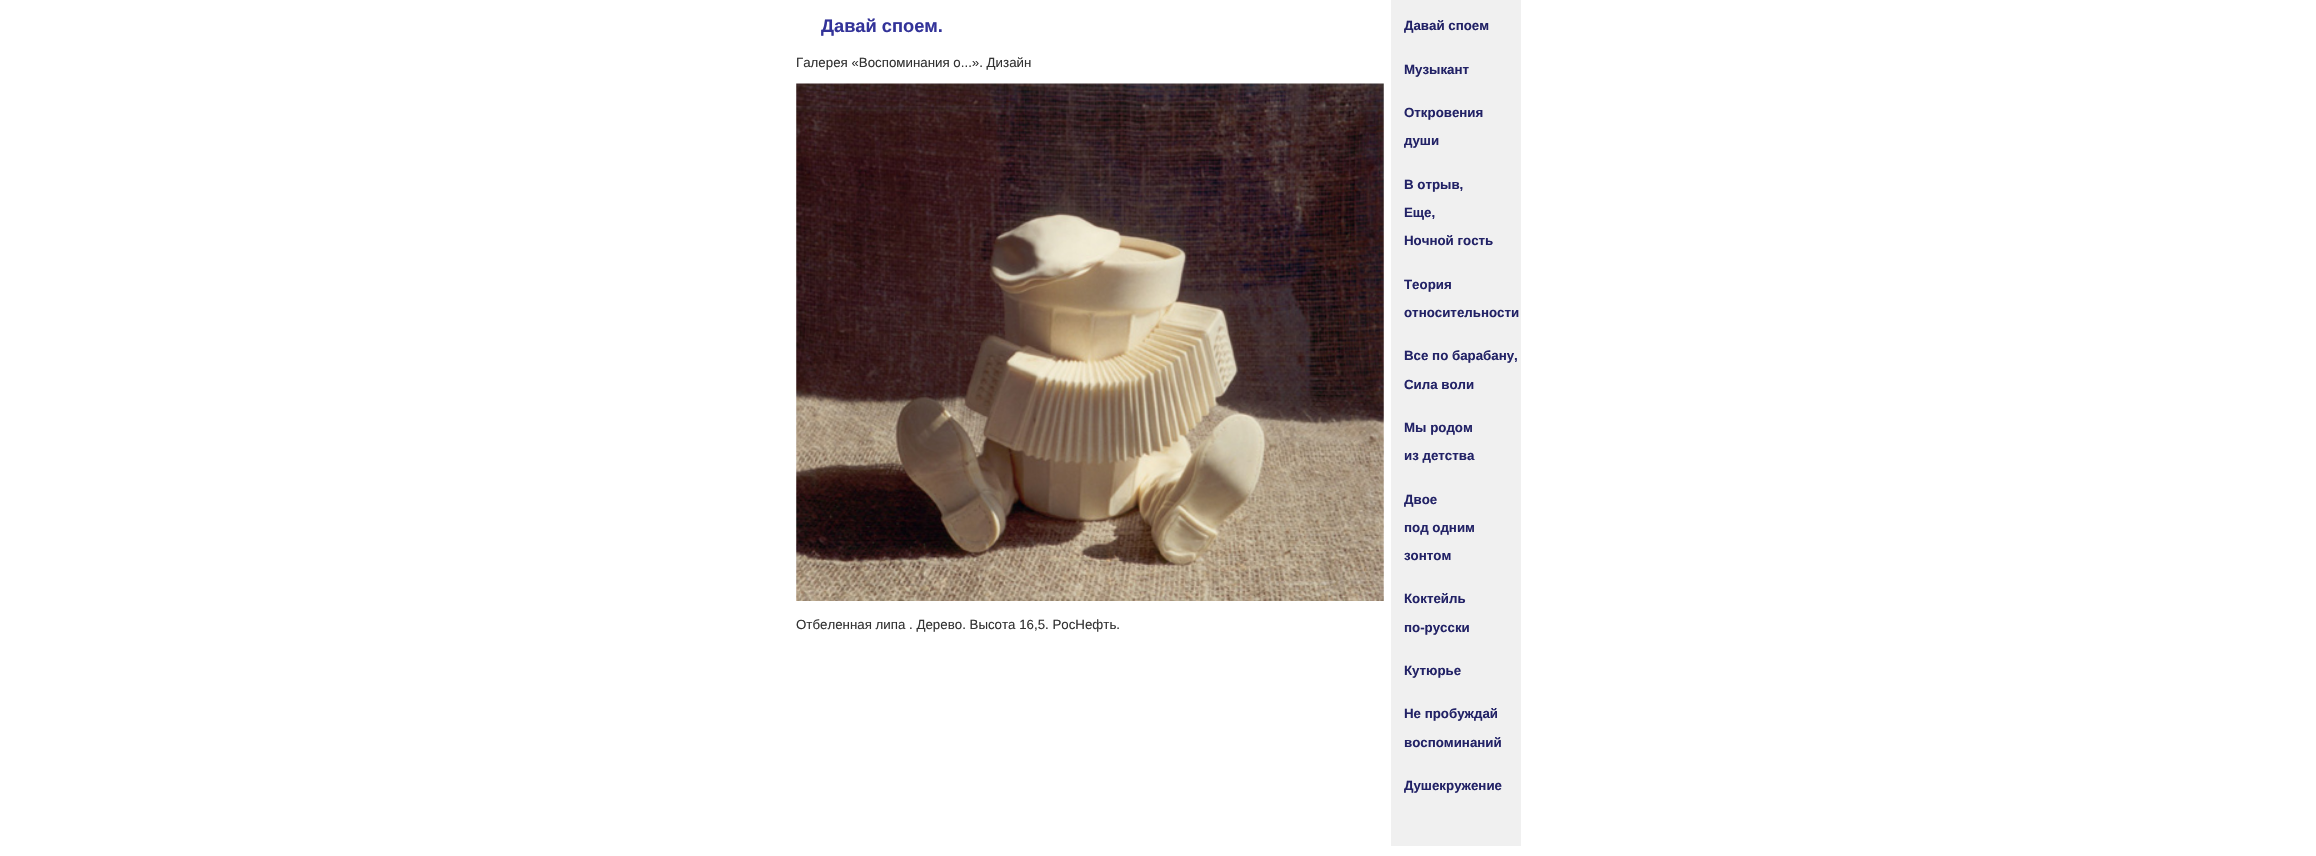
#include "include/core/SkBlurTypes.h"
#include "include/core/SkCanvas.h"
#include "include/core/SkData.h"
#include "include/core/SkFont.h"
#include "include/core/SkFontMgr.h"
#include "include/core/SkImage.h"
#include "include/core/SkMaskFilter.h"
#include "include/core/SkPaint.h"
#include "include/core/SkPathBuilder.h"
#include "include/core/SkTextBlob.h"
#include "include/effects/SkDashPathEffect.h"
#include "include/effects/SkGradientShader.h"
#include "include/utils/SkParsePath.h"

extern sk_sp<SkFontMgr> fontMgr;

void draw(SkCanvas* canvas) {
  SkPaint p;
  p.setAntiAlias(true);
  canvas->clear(SK_ColorWHITE);
  canvas->drawImageRect(SkImages::DeferredFromEncodedData(SkData::MakeFromFileName("images/1.png")), SkRect::MakeLTRB(796, 83, 1384, 601), SkSamplingOptions());
  p.setColor(SkColorSetRGB(240, 240, 240));
  canvas->drawRect(SkRect::MakeLTRB(1391, 0, 1521, 846), p);
  SkFont font1(fontMgr->matchFamilyStyle("Liberation Sans", SkFontStyle::Bold()), 18.25f);
  font1.setSubpixel(true);
  p.setColor(SkColorSetRGB(51, 51, 153));
  canvas->drawString("Давай споем.", 821, 32, font1, p);
  SkFont font2(fontMgr->matchFamilyStyle("Liberation Sans", SkFontStyle::Normal()), 13.3f);
  font2.setSubpixel(true);
  p.setColor(SkColorSetRGB(51, 51, 51));
  canvas->drawString("Галерея «Воспоминания о...». Дизайн", 796, 67, font2, p);
  canvas->drawString("Отбеленная липа . Дерево. Высота 16,5. РосНефть.", 796, 629, font2, p);
  SkFont font3(fontMgr->matchFamilyStyle("Liberation Sans", SkFontStyle::Bold()), 13.3f);
  font3.setSubpixel(true);
  p.setColor(SkColorSetRGB(34, 34, 102));
  canvas->drawString("Давай споем", 1404, 30, font3, p);
  canvas->drawString("Музыкант", 1404, 74, font3, p);
  canvas->drawString("Откровения", 1404, 117, font3, p);
  canvas->drawString("души", 1404, 145, font3, p);
  canvas->drawString("В отрыв,", 1404, 189, font3, p);
  canvas->drawString("Еще,", 1404, 217, font3, p);
  canvas->drawString("Ночной гость", 1404, 245, font3, p);
  canvas->drawString("Теория", 1404, 289, font3, p);
  canvas->drawString("относительности", 1404, 317, font3, p);
  canvas->drawString("Все по барабану,", 1404, 360, font3, p);
  canvas->drawString("Сила воли", 1404, 389, font3, p);
  canvas->drawString("Мы родом", 1404, 432, font3, p);
  canvas->drawString("из детства", 1404, 460, font3, p);
  canvas->drawString("Двое", 1404, 504, font3, p);
  canvas->drawString("под одним", 1404, 532, font3, p);
  canvas->drawString("зонтом", 1404, 560, font3, p);
  canvas->drawString("Коктейль", 1404, 603, font3, p);
  canvas->drawString("по-русски", 1404, 632, font3, p);
  canvas->drawString("Кутюрье", 1404, 675, font3, p);
  canvas->drawString("Не пробуждай", 1404, 718, font3, p);
  canvas->drawString("воспоминаний", 1404, 747, font3, p);
  canvas->drawString("Душекружение", 1404, 790, font3, p);
}
